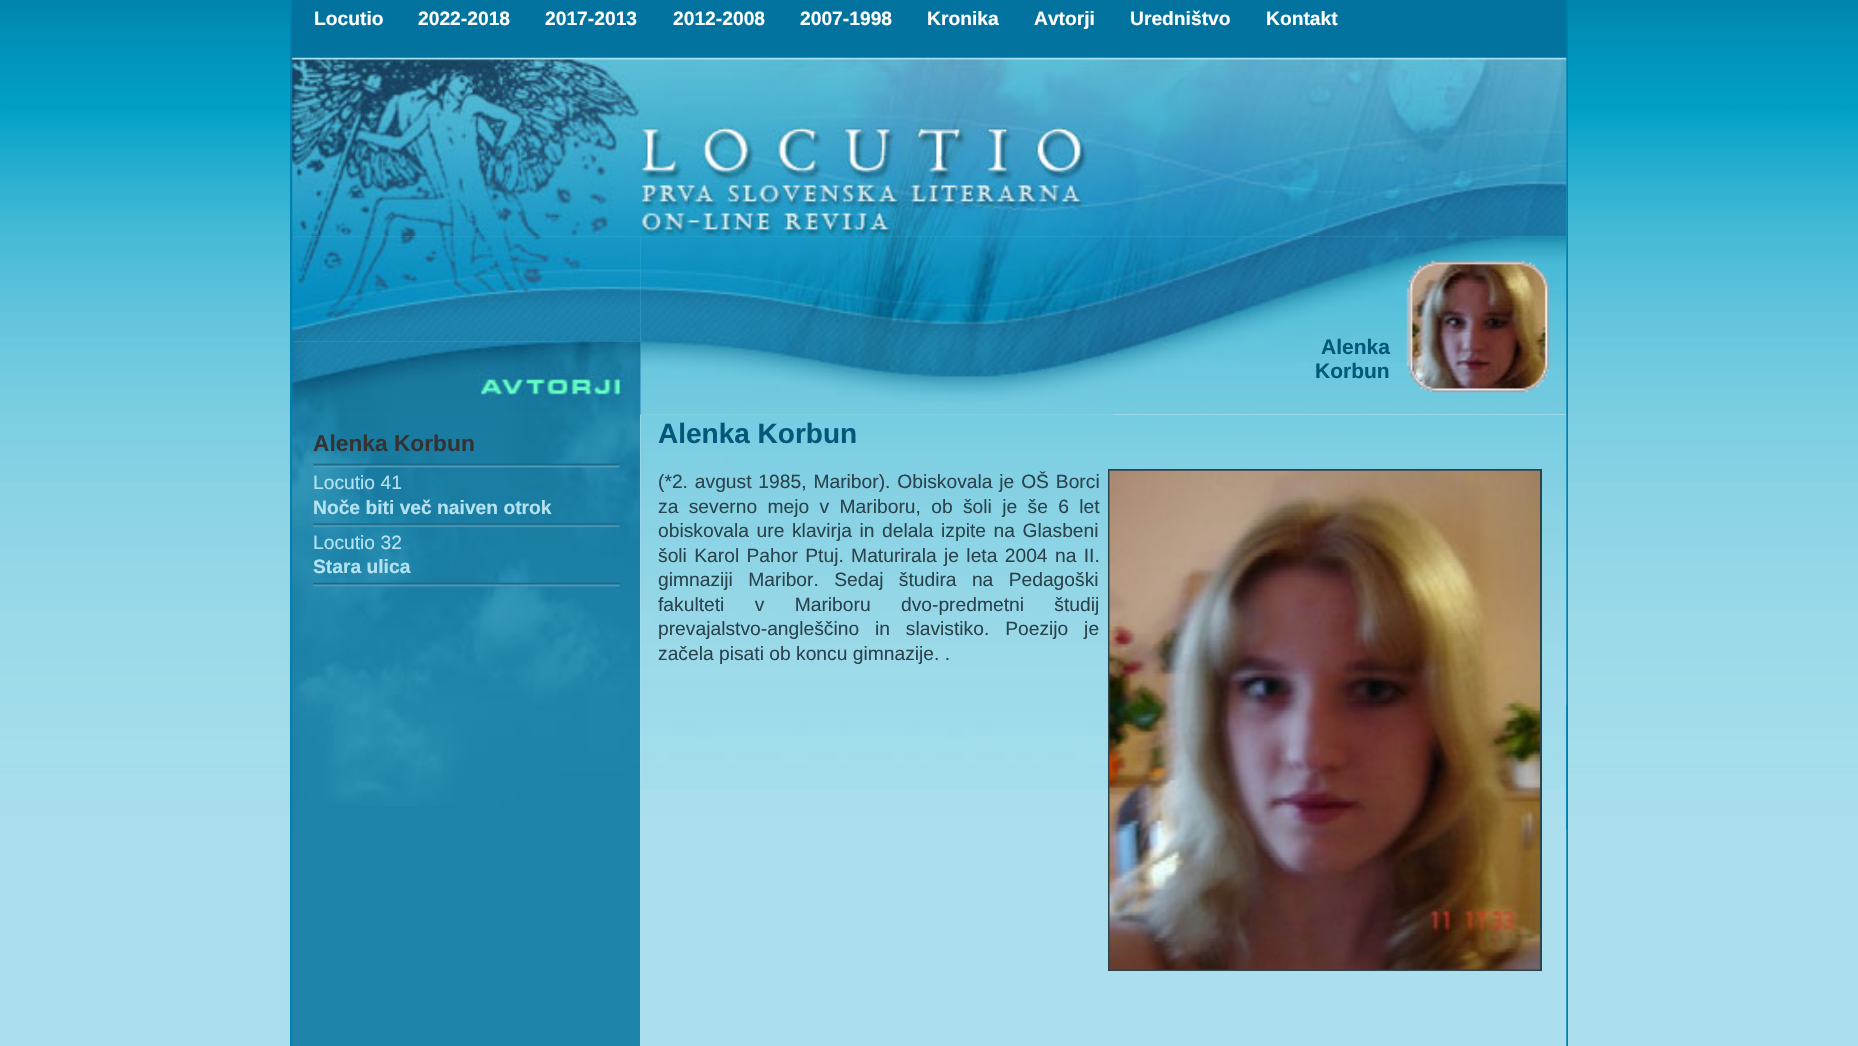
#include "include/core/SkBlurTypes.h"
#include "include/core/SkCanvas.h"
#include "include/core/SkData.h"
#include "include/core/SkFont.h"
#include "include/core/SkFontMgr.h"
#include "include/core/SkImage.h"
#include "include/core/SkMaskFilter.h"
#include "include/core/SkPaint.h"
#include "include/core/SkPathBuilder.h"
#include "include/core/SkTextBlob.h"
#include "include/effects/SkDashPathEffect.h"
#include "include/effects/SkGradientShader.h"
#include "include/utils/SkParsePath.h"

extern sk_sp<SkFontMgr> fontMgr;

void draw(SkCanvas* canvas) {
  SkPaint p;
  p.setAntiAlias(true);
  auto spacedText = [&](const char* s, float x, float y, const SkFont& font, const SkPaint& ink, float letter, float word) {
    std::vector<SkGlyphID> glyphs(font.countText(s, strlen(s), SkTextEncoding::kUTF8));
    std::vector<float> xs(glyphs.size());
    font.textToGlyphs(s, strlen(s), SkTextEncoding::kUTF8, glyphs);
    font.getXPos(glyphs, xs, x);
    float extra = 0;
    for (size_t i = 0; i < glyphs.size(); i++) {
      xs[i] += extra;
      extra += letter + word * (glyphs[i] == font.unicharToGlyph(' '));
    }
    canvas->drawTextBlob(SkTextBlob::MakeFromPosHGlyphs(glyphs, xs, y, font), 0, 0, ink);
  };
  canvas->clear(SkColorSetRGB(171, 223, 237));
  canvas->drawImageRect(SkImages::DeferredFromEncodedData(SkData::MakeFromFileName("images/1.png")), SkRect::MakeLTRB(0, 0, 1858, 815), SkSamplingOptions());
  p.setColor(SkColorSetRGB(1, 127, 175));
  canvas->drawRect(SkRect::MakeLTRB(290, 0, 293, 1046), p);
  p.setColor(SkColorSetRGB(29, 131, 169));
  canvas->drawRect(SkRect::MakeLTRB(292, 414, 640, 1046), p);
  canvas->drawImageRect(SkImages::DeferredFromEncodedData(SkData::MakeFromFileName("images/10.png")), SkRect::MakeLTRB(292, 415, 640, 806), SkSamplingOptions());
  canvas->drawImageRect(SkImages::DeferredFromEncodedData(SkData::MakeFromFileName("images/2.png")), SkRect::MakeLTRB(292, 705, 293, 829), SkSamplingOptions());
  p.setColor(SkColorSetRGB(2, 115, 159));
  canvas->drawRect(SkRect::MakeLTRB(292, 0, 1567, 58), p);
  canvas->drawImageRect(SkImages::DeferredFromEncodedData(SkData::MakeFromFileName("images/3.png")), SkRect::MakeLTRB(292, 57, 1113, 237), SkSamplingOptions());
  canvas->drawImageRect(SkImages::DeferredFromEncodedData(SkData::MakeFromFileName("images/8.png")), SkRect::MakeLTRB(1113, 236, 1567, 414), SkSamplingOptions());
  p.setColor(SkColorSetRGB(169, 222, 236));
  canvas->drawRect(SkRect::MakeLTRB(640, 414, 1567, 815), p);
  canvas->drawImageRect(SkImages::DeferredFromEncodedData(SkData::MakeFromFileName("images/14.png")), SkRect::MakeLTRB(640, 414, 1567, 790), SkSamplingOptions());
  canvas->drawImageRect(SkImages::DeferredFromEncodedData(SkData::MakeFromFileName("images/16.png")), SkRect::MakeLTRB(1566, 0, 1568, 1046), SkSamplingOptions());
  canvas->drawImageRect(SkImages::DeferredFromEncodedData(SkData::MakeFromFileName("images/4.png")), SkRect::MakeLTRB(1113, 57, 1567, 237), SkSamplingOptions());
  canvas->drawImageRect(SkImages::DeferredFromEncodedData(SkData::MakeFromFileName("images/6.png")), SkRect::MakeLTRB(292, 236, 641, 342), SkSamplingOptions());
  canvas->drawImageRect(SkImages::DeferredFromEncodedData(SkData::MakeFromFileName("images/7.png")), SkRect::MakeLTRB(640, 236, 1113, 415), SkSamplingOptions());
  canvas->drawImageRect(SkImages::DeferredFromEncodedData(SkData::MakeFromFileName("images/5.png")), SkRect::MakeLTRB(292, 341, 641, 415), SkSamplingOptions());
  canvas->drawImageRect(SkImages::DeferredFromEncodedData(SkData::MakeFromFileName("images/9.png")), SkRect::MakeLTRB(1406, 260, 1550, 393), SkSamplingOptions());
  canvas->drawImageRect(SkImages::DeferredFromEncodedData(SkData::MakeFromFileName("images/11.png")), SkRect::MakeLTRB(313, 463, 620, 468), SkSamplingOptions());
  canvas->drawImageRect(SkImages::DeferredFromEncodedData(SkData::MakeFromFileName("images/12.png")), SkRect::MakeLTRB(313, 523, 620, 528), SkSamplingOptions());
  canvas->drawImageRect(SkImages::DeferredFromEncodedData(SkData::MakeFromFileName("images/13.png")), SkRect::MakeLTRB(313, 582, 620, 587), SkSamplingOptions());
  p.setStyle(SkPaint::kStroke_Style);
  p.setStrokeWidth(2);
  p.setColor(SkColorSetRGB(42, 67, 77));
  canvas->drawRect(SkRect::MakeLTRB(1109, 470, 1541, 970), p);
  canvas->drawImageRect(SkImages::DeferredFromEncodedData(SkData::MakeFromFileName("images/15.png")), SkRect::MakeLTRB(1109, 470, 1540, 970), SkSamplingOptions());
  canvas->drawImageRect(SkImages::DeferredFromEncodedData(SkData::MakeFromFileName("images/17.png")), SkRect::MakeLTRB(1566, 705, 1567, 830), SkSamplingOptions());
  SkFont font1(fontMgr->matchFamilyStyle("Liberation Sans", SkFontStyle::Bold()), 19.25f);
  font1.setSubpixel(true);
  p.setStyle(SkPaint::kFill_Style);
  p.setColor(SK_ColorWHITE);
  canvas->drawString("Locutio", 314, 25, font1, p);
  canvas->drawString("2022-2018", 418, 25, font1, p);
  canvas->drawString("2017-2013", 545, 25, font1, p);
  canvas->drawString("2012-2008", 673, 25, font1, p);
  canvas->drawString("2007-1998", 800, 25, font1, p);
  canvas->drawString("Kronika", 927, 25, font1, p);
  canvas->drawString("Avtorji", 1034, 25, font1, p);
  canvas->drawString("Uredništvo", 1130, 25, font1, p);
  canvas->drawString("Kontakt", 1266, 25, font1, p);
  SkFont font2(fontMgr->matchFamilyStyle("Liberation Sans", SkFontStyle::Bold()), 21);
  font2.setSubpixel(true);
  p.setColor(SkColorSetRGB(1, 88, 121));
  canvas->drawString("Alenka", 1321, 354, font2, p);
  canvas->drawString("Korbun", 1315, 378, font2, p);
  SkFont font3(fontMgr->matchFamilyStyle("Liberation Sans", SkFontStyle::Bold()), 22.75f);
  font3.setSubpixel(true);
  p.setColor(SkColorSetRGB(51, 51, 51));
  canvas->drawString("Alenka Korbun", 313, 451, font3, p);
  SkFont font4(fontMgr->matchFamilyStyle("Liberation Sans", SkFontStyle::Normal()), 19.25f);
  font4.setSubpixel(true);
  p.setColor(SkColorSetRGB(180, 226, 240));
  canvas->drawString("Locutio 41", 313, 489, font4, p);
  canvas->drawString("Noče biti več naiven otrok", 313, 514, font1, p);
  canvas->drawString("Locutio 32", 313, 549, font4, p);
  canvas->drawString("Stara ulica", 313, 573, font1, p);
  SkFont font5(fontMgr->matchFamilyStyle("Liberation Sans", SkFontStyle::Bold()), 28);
  font5.setSubpixel(true);
  p.setColor(SkColorSetRGB(1, 88, 121));
  canvas->drawString("Alenka Korbun", 658, 443, font5, p);
  p.setColor(SkColorSetRGB(42, 67, 77));
  spacedText("(*2. avgust 1985, Maribor). Obiskovala je OŠ Borci", 658, 488, font4, p, 0, 1.5f);
  spacedText("za severno mejo v Mariboru, ob šoli je še 6 let", 658, 513, font4, p, 0, 5);
  spacedText("obiskovala ure klavirja in delala izpite na Glasbeni", 658, 537, font4, p, 0, 2.25f);
  spacedText("šoli Karol Pahor Ptuj. Maturirala je leta 2004 na II.", 658, 562, font4, p, 0, 2);
  spacedText("gimnaziji Maribor. Sedaj študira na Pedagoški", 658, 586, font4, p, 0, 10);
  spacedText("fakulteti v Mariboru dvo-predmetni študij", 658, 611, font4, p, 0, 25);
  spacedText("prevajalstvo-angleščino in slavistiko. Poezijo je", 658, 635, font4, p, 0, 10.5f);
  canvas->drawString("začela pisati ob koncu gimnazije. .", 658, 660, font4, p);
}
